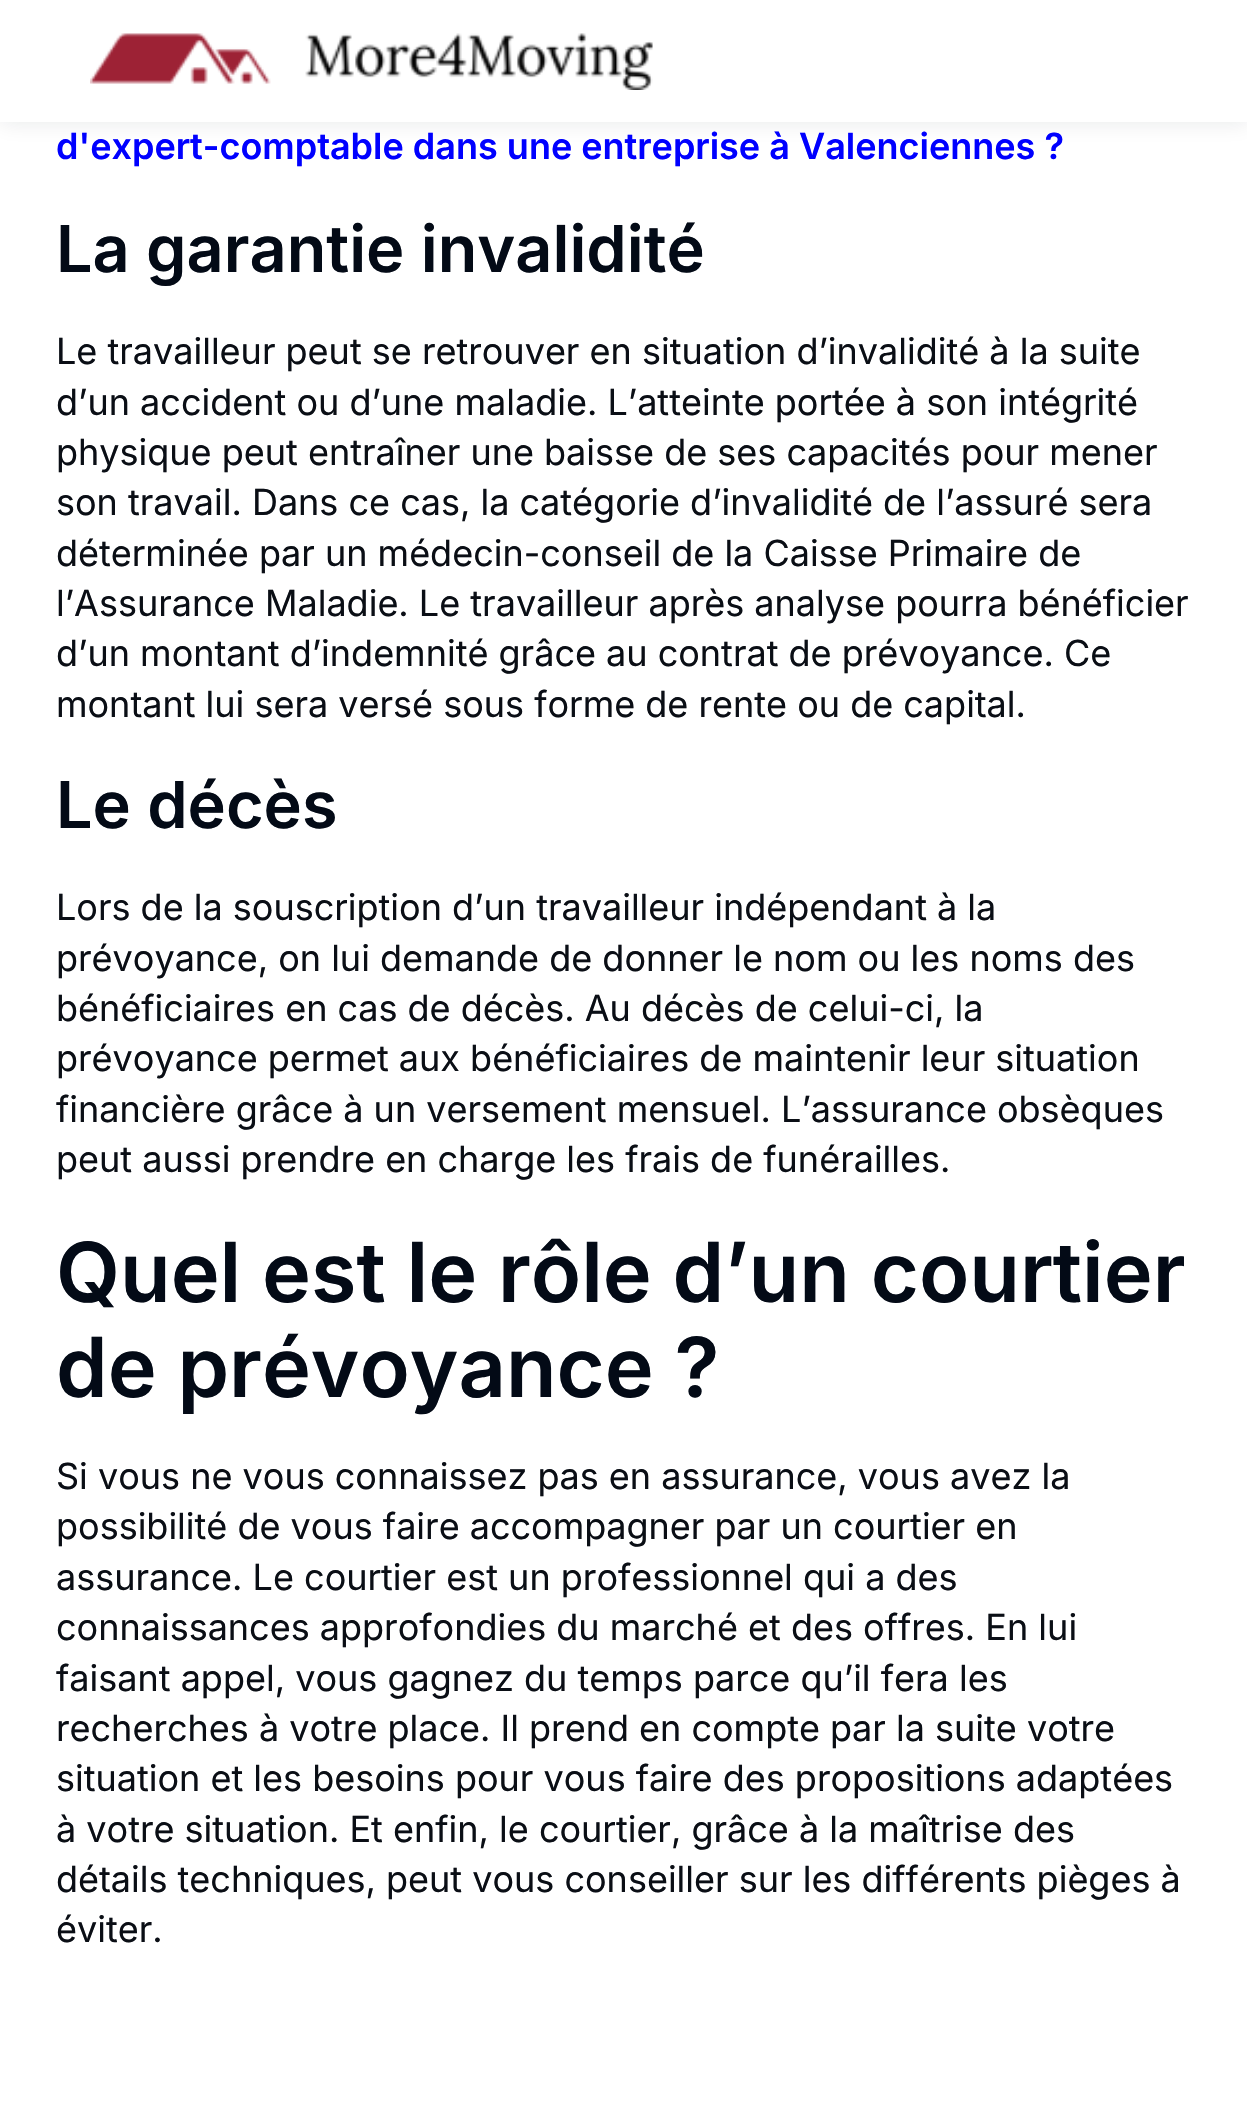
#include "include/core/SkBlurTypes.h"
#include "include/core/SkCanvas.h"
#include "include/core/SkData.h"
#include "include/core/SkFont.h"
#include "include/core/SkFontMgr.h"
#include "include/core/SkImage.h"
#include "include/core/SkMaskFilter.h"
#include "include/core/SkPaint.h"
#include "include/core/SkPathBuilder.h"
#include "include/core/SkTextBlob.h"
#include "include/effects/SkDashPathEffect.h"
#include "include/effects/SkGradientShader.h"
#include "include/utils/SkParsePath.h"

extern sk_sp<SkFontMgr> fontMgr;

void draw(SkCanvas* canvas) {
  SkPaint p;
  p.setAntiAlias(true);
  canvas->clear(SK_ColorWHITE);
  p.setColor(SkColorSetARGB(26, 23, 25, 39));
  p.setMaskFilter(SkMaskFilter::MakeBlur(kNormal_SkBlurStyle, 11));
  canvas->drawRect(SkRect::MakeLTRB(0, 0, 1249, 122), p);
  p.setMaskFilter(nullptr);
  p.setColor(SK_ColorWHITE);
  canvas->drawRect(SkRect::MakeLTRB(0, 0, 1247, 122), p);
  canvas->drawImageRect(SkImages::DeferredFromEncodedData(SkData::MakeFromFileName("images/1.png")), SkRect::MakeLTRB(90, 33, 653, 90), SkSamplingOptions());
  SkFont font1(fontMgr->matchFamilyStyle("Inter", SkFontStyle(600, SkFontStyle::kNormal_Width, SkFontStyle::kUpright_Slant)), 36);
  font1.setSubpixel(true);
  p.setColor(SkColorSetRGB(0, 0, 255));
  canvas->drawString("d'expert-comptable dans une entreprise à Valenciennes ?", 56, 159, font1, p);
  SkFont font2(fontMgr->matchFamilyStyle("Inter", SkFontStyle(600, SkFontStyle::kNormal_Width, SkFontStyle::kUpright_Slant)), 64.75f);
  font2.setSubpixel(true);
  p.setColor(SkColorSetRGB(3, 10, 22));
  canvas->drawString("La garantie invalidité", 56, 272, font2, p);
  SkFont font3(fontMgr->matchFamilyStyle("Inter", SkFontStyle::Normal()), 36);
  font3.setSubpixel(true);
  p.setColor(SkColorSetRGB(10, 14, 21));
  canvas->drawString("Le travailleur peut se retrouver en situation d’invalidité à la suite", 56, 364, font3, p);
  canvas->drawString("d’un accident ou d’une maladie. L’atteinte portée à son intégrité", 56, 415, font3, p);
  canvas->drawString("physique peut entraîner une baisse de ses capacités pour mener", 56, 465, font3, p);
  canvas->drawString("son travail. Dans ce cas, la catégorie d’invalidité de l’assuré sera", 56, 515, font3, p);
  canvas->drawString("déterminée par un médecin-conseil de la Caisse Primaire de", 56, 566, font3, p);
  canvas->drawString("l’Assurance Maladie. Le travailleur après analyse pourra bénéficier", 56, 616, font3, p);
  canvas->drawString("d’un montant d’indemnité grâce au contrat de prévoyance. Ce", 56, 666, font3, p);
  canvas->drawString("montant lui sera versé sous forme de rente ou de capital.", 56, 717, font3, p);
  p.setColor(SkColorSetRGB(3, 10, 22));
  canvas->drawString("Le décès", 56, 828, font2, p);
  p.setColor(SkColorSetRGB(10, 14, 21));
  canvas->drawString("Lors de la souscription d’un travailleur indépendant à la", 56, 920, font3, p);
  canvas->drawString("prévoyance, on lui demande de donner le nom ou les noms des", 56, 971, font3, p);
  canvas->drawString("bénéficiaires en cas de décès. Au décès de celui-ci, la", 56, 1021, font3, p);
  canvas->drawString("prévoyance permet aux bénéficiaires de maintenir leur situation", 56, 1071, font3, p);
  canvas->drawString("financière grâce à un versement mensuel. L’assurance obsèques", 56, 1122, font3, p);
  canvas->drawString("peut aussi prendre en charge les frais de funérailles.", 56, 1172, font3, p);
  SkFont font4(fontMgr->matchFamilyStyle("Inter", SkFontStyle(600, SkFontStyle::kNormal_Width, SkFontStyle::kUpright_Slant)), 82.75f);
  font4.setSubpixel(true);
  p.setColor(SkColorSetRGB(3, 10, 22));
  canvas->drawString("Quel est le rôle d’un courtier", 56, 1302, font4, p);
  canvas->drawString("de prévoyance ?", 56, 1397, font4, p);
  p.setColor(SkColorSetRGB(10, 14, 21));
  canvas->drawString("Si vous ne vous connaissez pas en assurance, vous avez la", 56, 1489, font3, p);
  canvas->drawString("possibilité de vous faire accompagner par un courtier en", 56, 1539, font3, p);
  canvas->drawString("assurance. Le courtier est un professionnel qui a des", 56, 1590, font3, p);
  canvas->drawString("connaissances approfondies du marché et des offres. En lui", 56, 1640, font3, p);
  canvas->drawString("faisant appel, vous gagnez du temps parce qu’il fera les", 56, 1691, font3, p);
  canvas->drawString("recherches à votre place. Il prend en compte par la suite votre", 56, 1741, font3, p);
  canvas->drawString("situation et les besoins pour vous faire des propositions adaptées", 56, 1791, font3, p);
  canvas->drawString("à votre situation. Et enfin, le courtier, grâce à la maîtrise des", 56, 1842, font3, p);
  canvas->drawString("détails techniques, peut vous conseiller sur les différents pièges à", 56, 1892, font3, p);
  canvas->drawString("éviter.", 56, 1942, font3, p);
}
